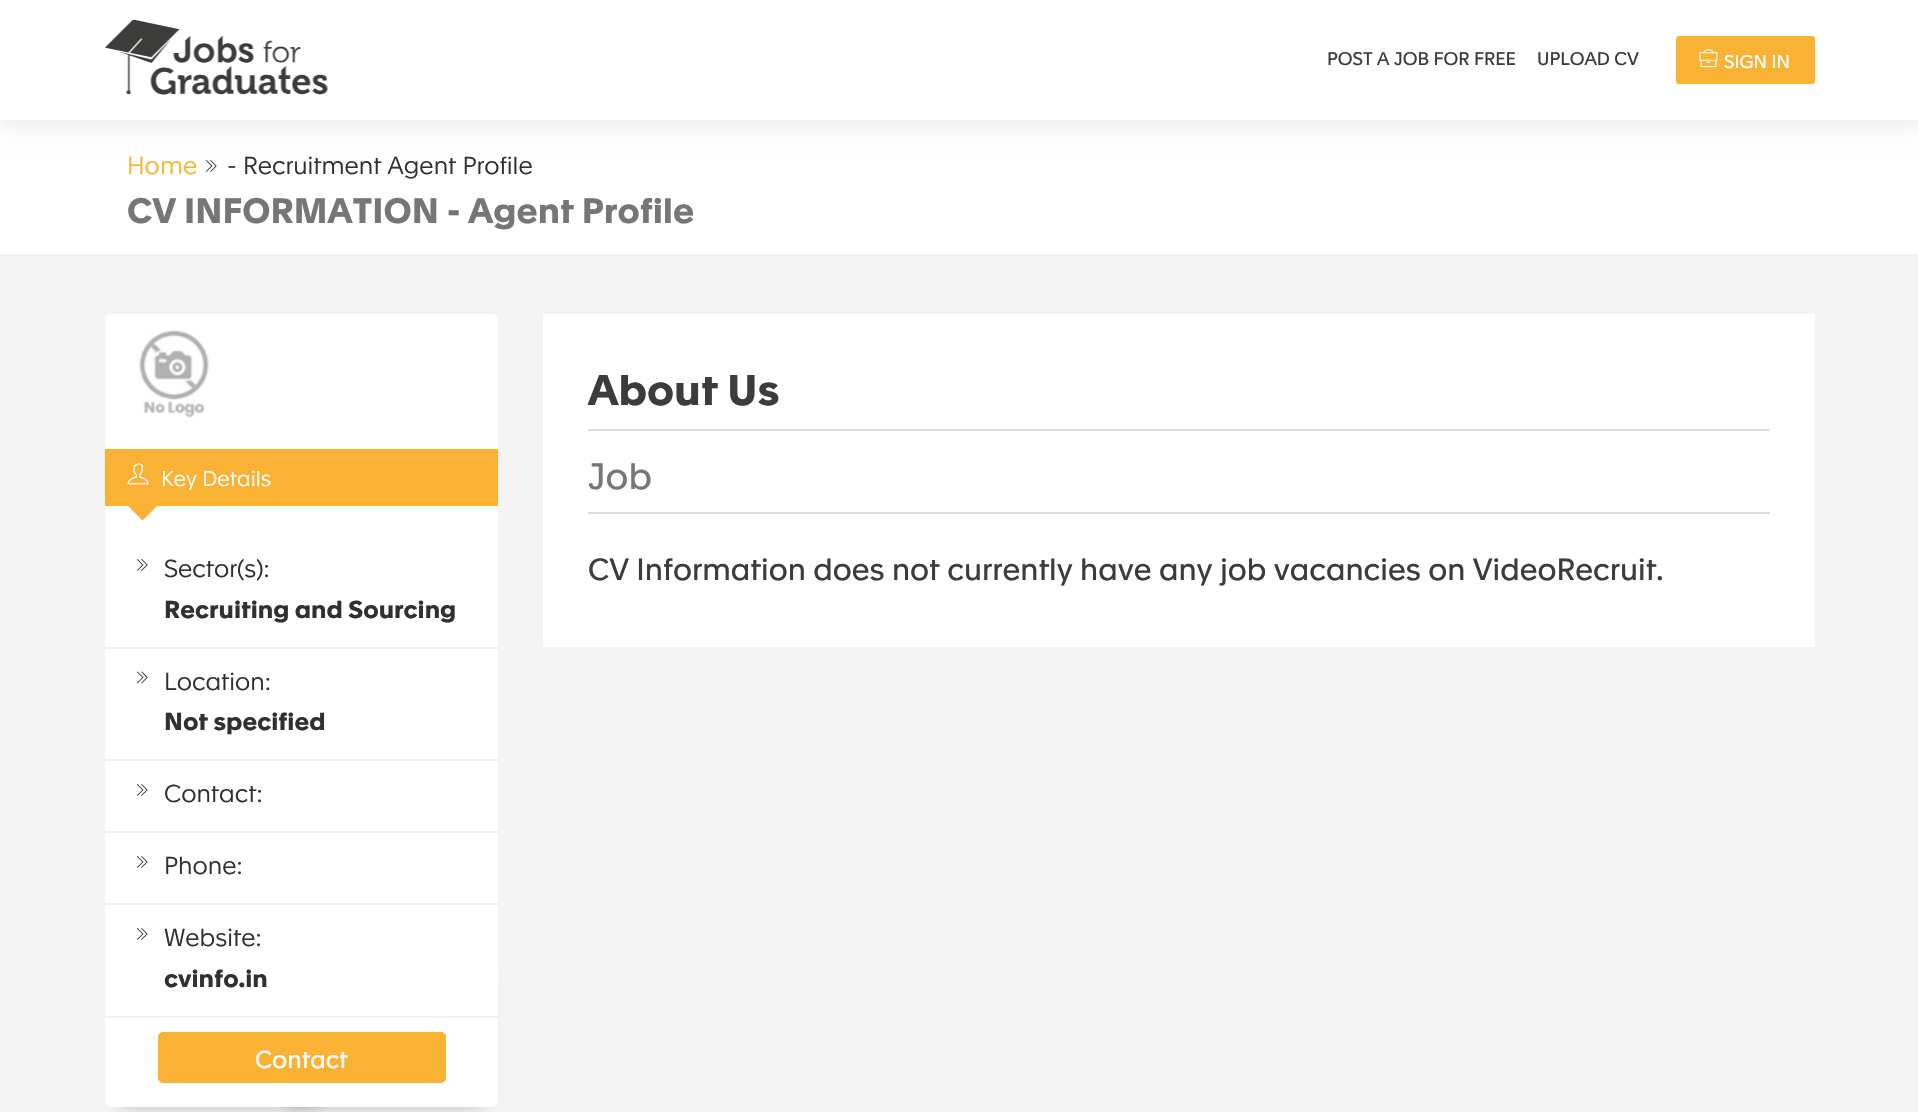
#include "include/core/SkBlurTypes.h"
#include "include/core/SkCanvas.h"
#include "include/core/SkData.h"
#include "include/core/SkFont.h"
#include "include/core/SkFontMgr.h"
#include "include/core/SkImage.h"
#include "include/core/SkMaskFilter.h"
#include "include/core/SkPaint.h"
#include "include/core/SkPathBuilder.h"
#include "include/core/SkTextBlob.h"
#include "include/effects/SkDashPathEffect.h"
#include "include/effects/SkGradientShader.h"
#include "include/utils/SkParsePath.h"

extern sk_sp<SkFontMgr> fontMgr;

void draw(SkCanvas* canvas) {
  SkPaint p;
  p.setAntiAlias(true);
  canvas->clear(SkColorSetRGB(244, 244, 244));
  p.setColor(SK_ColorWHITE);
  canvas->drawRect(SkRect::MakeLTRB(0, 120, 1918, 254), p);
  p.setColor(SkColorSetARGB(26, 0, 0, 0));
  p.setMaskFilter(SkMaskFilter::MakeBlur(kNormal_SkBlurStyle, 12));
  canvas->drawRect(SkRect::MakeLTRB(0, 2, 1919, 122), p);
  p.setMaskFilter(nullptr);
  p.setColor(SK_ColorWHITE);
  canvas->drawRect(SkRect::MakeLTRB(0, 0, 1918, 120), p);
  canvas->drawImageRect(SkImages::DeferredFromEncodedData(SkData::MakeFromFileName("images/1.png")), SkRect::MakeLTRB(105, 20, 328, 95), SkSamplingOptions());
  p.setColor(SkColorSetRGB(249, 178, 51));
  canvas->drawRoundRect(SkRect::MakeLTRB(1677, 37, 1814, 83), 2, 2, p);
  p.setStyle(SkPaint::kStroke_Style);
  p.setStrokeWidth(2);
  canvas->drawRoundRect(SkRect::MakeLTRB(1677, 37, 1814, 83), 2, 2, p);
  canvas->drawImageRect(SkImages::DeferredFromEncodedData(SkData::MakeFromFileName("images/2.png")), SkRect::MakeLTRB(1699, 49, 1718, 68), SkSamplingOptions());
  canvas->drawImageRect(SkImages::DeferredFromEncodedData(SkData::MakeFromFileName("images/3.png")), SkRect::MakeLTRB(205, 160, 217, 172), SkSamplingOptions());
  p.setStyle(SkPaint::kFill_Style);
  p.setColor(SkColorSetARGB(56, 0, 0, 0));
  p.setMaskFilter(SkMaskFilter::MakeBlur(kNormal_SkBlurStyle, 7.5f));
  canvas->drawRect(SkRect::MakeLTRB(120, 971, 317, 1107), p);
  p.setMaskFilter(nullptr);
  p.setMaskFilter(SkMaskFilter::MakeBlur(kNormal_SkBlurStyle, 7.5f));
  canvas->drawRect(SkRect::MakeLTRB(287, 971, 483, 1107), p);
  p.setMaskFilter(nullptr);
  p.setColor(SK_ColorWHITE);
  canvas->drawRoundRect(SkRect::MakeLTRB(105, 314, 498, 1107), 6, 6, p);
  canvas->drawImageRect(SkImages::DeferredFromEncodedData(SkData::MakeFromFileName("images/4.png")), SkRect::MakeLTRB(139, 330, 209, 418), SkSamplingOptions());
  p.setColor(SkColorSetRGB(249, 178, 51));
  canvas->drawRect(SkRect::MakeLTRB(105, 449, 498, 506), p);
  canvas->drawImageRect(SkImages::DeferredFromEncodedData(SkData::MakeFromFileName("images/5.png")), SkRect::MakeLTRB(127, 463, 149, 485), SkSamplingOptions());
  canvas->drawPath(SkPathBuilder().moveTo(127.5f, 505.5f).lineTo(157.5f, 505.5f).lineTo(142.5f, 520.5f).close().detach(), p);
  p.setColor(SkColorSetRGB(241, 241, 241));
  canvas->drawRect(SkRect::MakeLTRB(105, 647, 498, 649), p);
  canvas->drawImageRect(SkImages::DeferredFromEncodedData(SkData::MakeFromFileName("images/3.png")), SkRect::MakeLTRB(136, 559, 148, 571), SkSamplingOptions());
  canvas->drawRect(SkRect::MakeLTRB(105, 759, 498, 761), p);
  canvas->drawImageRect(SkImages::DeferredFromEncodedData(SkData::MakeFromFileName("images/6.png")), SkRect::MakeLTRB(136, 671, 148, 684), SkSamplingOptions());
  canvas->drawRect(SkRect::MakeLTRB(105, 831, 498, 833), p);
  canvas->drawImageRect(SkImages::DeferredFromEncodedData(SkData::MakeFromFileName("images/3.png")), SkRect::MakeLTRB(136, 784, 148, 796), SkSamplingOptions());
  canvas->drawRect(SkRect::MakeLTRB(105, 903, 498, 905), p);
  canvas->drawImageRect(SkImages::DeferredFromEncodedData(SkData::MakeFromFileName("images/3.png")), SkRect::MakeLTRB(136, 856, 148, 868), SkSamplingOptions());
  canvas->drawRect(SkRect::MakeLTRB(105, 1016, 498, 1018), p);
  canvas->drawImageRect(SkImages::DeferredFromEncodedData(SkData::MakeFromFileName("images/3.png")), SkRect::MakeLTRB(136, 928, 148, 940), SkSamplingOptions());
  p.setColor(SkColorSetRGB(249, 178, 51));
  canvas->drawRoundRect(SkRect::MakeLTRB(159, 1033, 445, 1082), 4, 4, p);
  p.setStyle(SkPaint::kStroke_Style);
  canvas->drawRoundRect(SkRect::MakeLTRB(159, 1033, 445, 1082), 4, 4, p);
  p.setStyle(SkPaint::kFill_Style);
  p.setColor(SK_ColorWHITE);
  canvas->drawRect(SkRect::MakeLTRB(543, 314, 1815, 647), p);
  p.setColor(SkColorSetRGB(221, 221, 221));
  canvas->drawRect(SkRect::MakeLTRB(588, 429, 1770, 431), p);
  canvas->drawRect(SkRect::MakeLTRB(588, 512, 1770, 514), p);
  SkFont font1(fontMgr->matchFamilyStyle("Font", SkFontStyle::Normal()), 18);
  font1.setSubpixel(true);
  p.setColor(SkColorSetRGB(60, 60, 59));
  canvas->drawString("POST A JOB FOR FREE", 1327, 65, font1, p);
  canvas->drawString("UPLOAD CV", 1537, 65, font1, p);
  p.setColor(SK_ColorWHITE);
  canvas->drawString("SIGN IN", 1724, 68, font1, p);
  SkFont font2(fontMgr->matchFamilyStyle("Font", SkFontStyle(300, SkFontStyle::kNormal_Width, SkFontStyle::kUpright_Slant)), 24);
  font2.setSubpixel(true);
  p.setColor(SkColorSetRGB(249, 178, 51));
  canvas->drawString("Home", 127, 174, font2, p);
  p.setColor(SkColorSetRGB(48, 48, 48));
  canvas->drawString("- Recruitment Agent Profile", 227, 174, font2, p);
  SkFont font3(fontMgr->matchFamilyStyle("Font", SkFontStyle::Bold()), 34.5f);
  font3.setSubpixel(true);
  p.setColor(SkColorSetRGB(118, 118, 118));
  canvas->drawString("CV INFORMATION - Agent Profile", 127, 223, font3, p);
  SkFont font4(fontMgr->matchFamilyStyle("Font", SkFontStyle(300, SkFontStyle::kNormal_Width, SkFontStyle::kUpright_Slant)), 21);
  font4.setSubpixel(true);
  p.setColor(SK_ColorWHITE);
  canvas->drawString("Key Details", 161, 486, font4, p);
  p.setColor(SkColorSetRGB(48, 48, 48));
  canvas->drawString("Sector(s):", 164, 577, font2, p);
  SkFont font5(fontMgr->matchFamilyStyle("Font", SkFontStyle::Bold()), 24);
  font5.setSubpixel(true);
  canvas->drawString("Recruiting and Sourcing", 164, 618, font5, p);
  canvas->drawString("Location:", 164, 690, font2, p);
  canvas->drawString("Not specified", 164, 730, font5, p);
  canvas->drawString("Contact:", 164, 802, font2, p);
  canvas->drawString("Phone:", 164, 874, font2, p);
  canvas->drawString("Website:", 164, 946, font2, p);
  canvas->drawString("cvinfo.in", 164, 987, font5, p);
  SkFont font6(fontMgr->matchFamilyStyle("Font", SkFontStyle::Normal()), 24);
  font6.setSubpixel(true);
  p.setColor(SK_ColorWHITE);
  canvas->drawString("Contact", 255, 1068, font6, p);
  SkFont font7(fontMgr->matchFamilyStyle("Font", SkFontStyle::Bold()), 42);
  font7.setSubpixel(true);
  p.setColor(SkColorSetRGB(60, 60, 59));
  canvas->drawString("About Us", 588, 405, font7, p);
  SkFont font8(fontMgr->matchFamilyStyle("Font", SkFontStyle::Normal()), 36);
  font8.setSubpixel(true);
  p.setColor(SkColorSetRGB(118, 118, 118));
  canvas->drawString("Job", 588, 489, font8, p);
  SkFont font9(fontMgr->matchFamilyStyle("Font", SkFontStyle::Normal()), 30);
  font9.setSubpixel(true);
  p.setColor(SkColorSetRGB(60, 60, 59));
  canvas->drawString("CV Information does not currently have any job vacancies on VideoRecruit.", 588, 580, font9, p);
}
